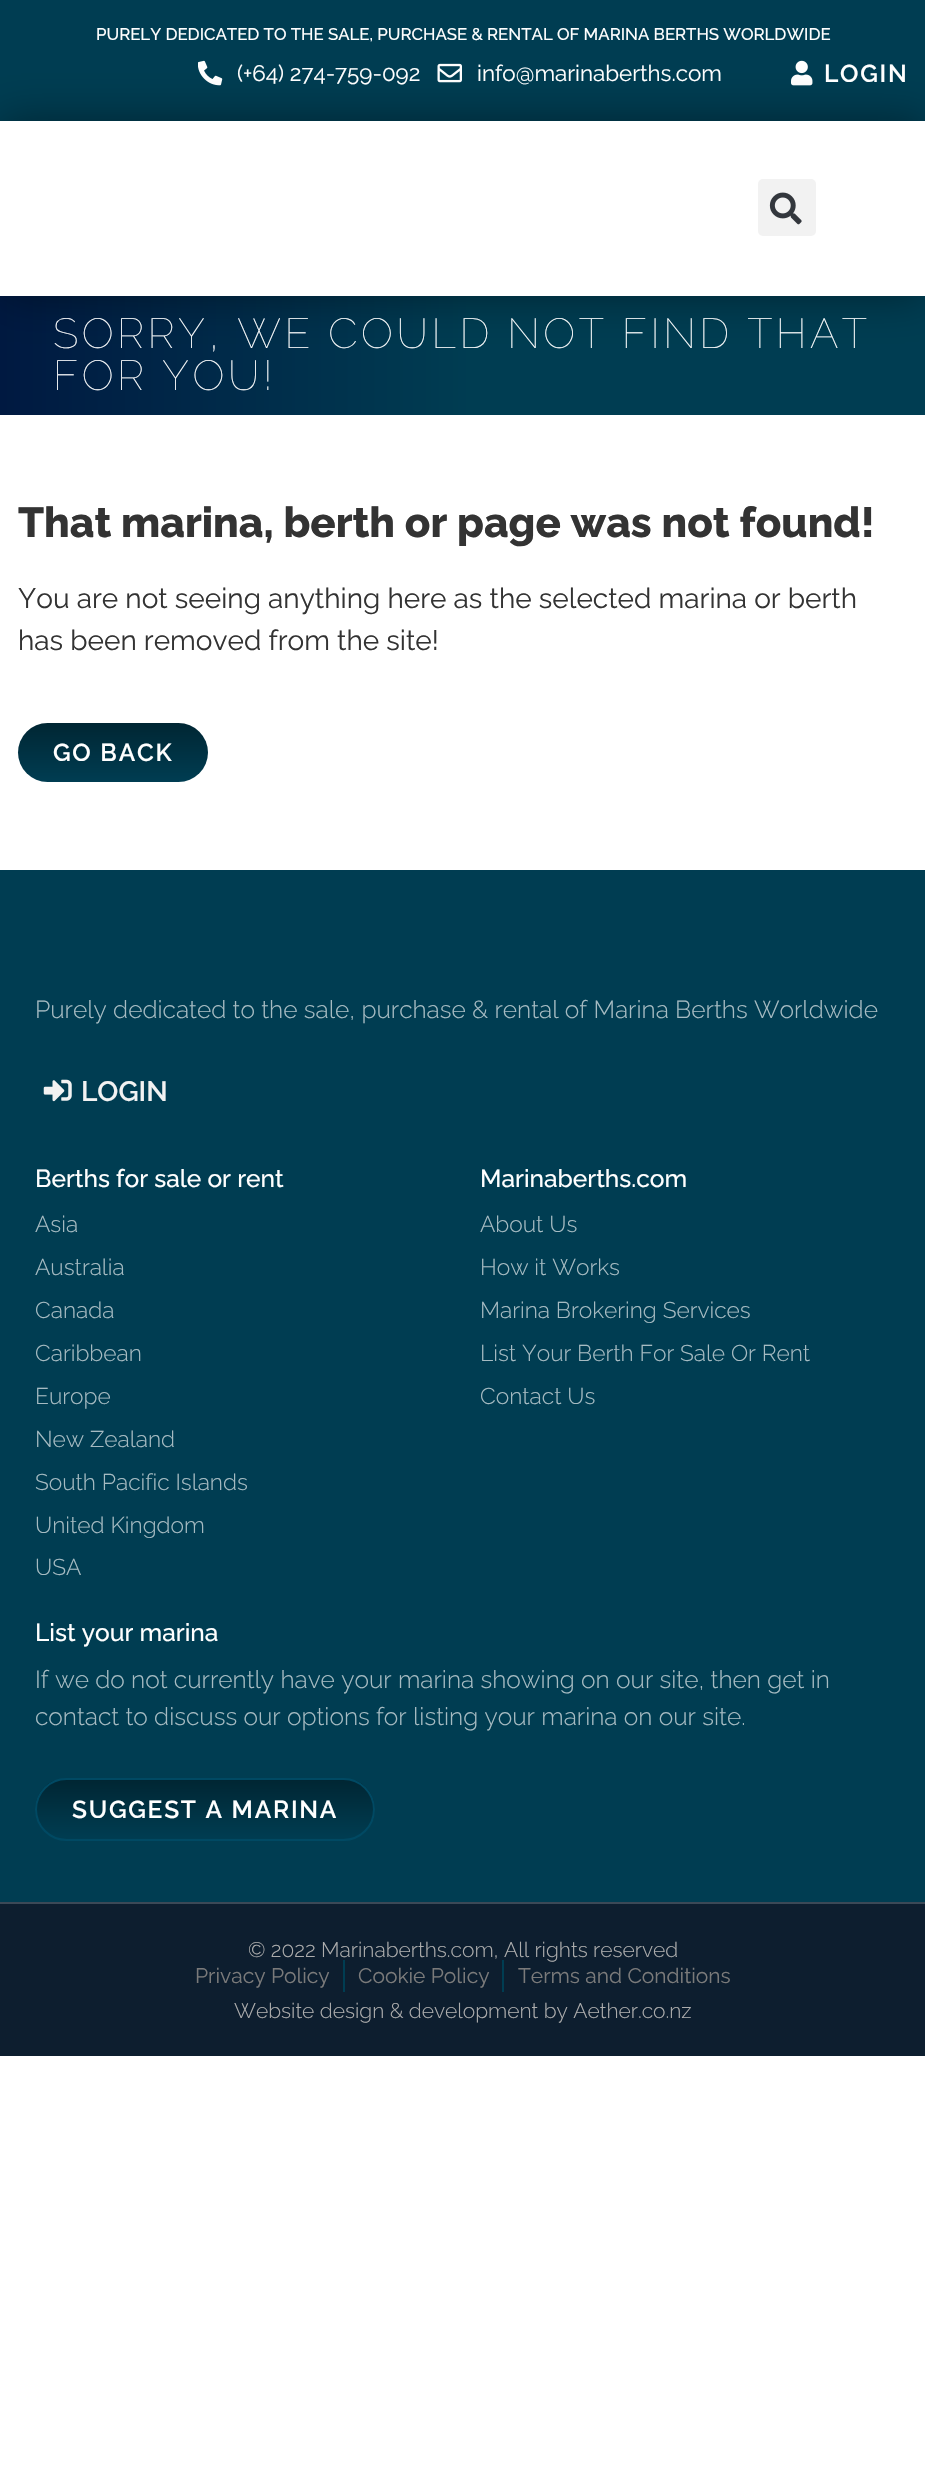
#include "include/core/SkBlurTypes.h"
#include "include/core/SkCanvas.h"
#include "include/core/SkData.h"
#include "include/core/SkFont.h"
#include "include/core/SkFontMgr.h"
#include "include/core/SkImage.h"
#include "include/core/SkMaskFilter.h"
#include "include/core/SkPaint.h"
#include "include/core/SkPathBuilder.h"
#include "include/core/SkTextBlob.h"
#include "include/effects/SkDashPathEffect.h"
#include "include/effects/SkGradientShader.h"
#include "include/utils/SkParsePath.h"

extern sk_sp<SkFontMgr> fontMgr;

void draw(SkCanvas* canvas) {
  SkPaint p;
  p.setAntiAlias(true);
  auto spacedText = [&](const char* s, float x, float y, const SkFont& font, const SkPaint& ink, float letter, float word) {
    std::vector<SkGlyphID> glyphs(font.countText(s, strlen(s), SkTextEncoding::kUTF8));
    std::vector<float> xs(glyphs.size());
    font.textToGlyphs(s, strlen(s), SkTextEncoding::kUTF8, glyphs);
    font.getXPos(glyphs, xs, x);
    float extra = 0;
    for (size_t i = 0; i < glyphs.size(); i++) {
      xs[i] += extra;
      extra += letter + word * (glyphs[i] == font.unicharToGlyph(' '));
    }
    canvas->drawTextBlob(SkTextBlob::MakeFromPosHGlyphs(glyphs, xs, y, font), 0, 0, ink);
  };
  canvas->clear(SK_ColorWHITE);
  p.setColor(SkColorSetRGB(0, 61, 82));
  canvas->drawRect(SkRect::MakeLTRB(0, 0, 925, 121), p);
  canvas->drawImageRect(SkImages::DeferredFromEncodedData(SkData::MakeFromFileName("images/1.png")), SkRect::MakeLTRB(198, 60, 223, 86), SkSamplingOptions());
  canvas->drawImageRect(SkImages::DeferredFromEncodedData(SkData::MakeFromFileName("images/2.png")), SkRect::MakeLTRB(437, 63, 462, 83), SkSamplingOptions());
  canvas->drawImageRect(SkImages::DeferredFromEncodedData(SkData::MakeFromFileName("images/3.png")), SkRect::MakeLTRB(791, 60, 813, 86), SkSamplingOptions());
  {
    const SkColor colors[] = {SkColorSetRGB(0, 25, 65), SkColorSetRGB(0, 61, 82)};
    const float stops[] = {0, 0.51f};
    const SkPoint ends[] = {{0, 355}, {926, 355}};
    p.setShader(SkGradientShader::MakeLinear(ends, colors, stops, 2, SkTileMode::kClamp));
    p.setAlpha(255);
  }
  canvas->drawRect(SkRect::MakeLTRB(0, 296, 925, 415), p);
  p.setShader(nullptr);
  p.setColor(SkColorSetARGB(102, 0, 0, 0));
  p.setMaskFilter(SkMaskFilter::MakeBlur(kNormal_SkBlurStyle, 21));
  canvas->drawRect(SkRect::MakeLTRB(0, 121, 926, 296), p);
  p.setMaskFilter(nullptr);
  p.setColor(SK_ColorWHITE);
  canvas->drawRect(SkRect::MakeLTRB(0, 121, 925, 296), p);
  p.setColor(SkColorSetRGB(242, 242, 242));
  canvas->drawRoundRect(SkRect::MakeLTRB(758, 179, 816, 236), 5, 5, p);
  canvas->drawImageRect(SkImages::DeferredFromEncodedData(SkData::MakeFromFileName("images/4.png")), SkRect::MakeLTRB(769, 192, 802, 225), SkSamplingOptions());
  {
    const SkColor colors[] = {SkColorSetRGB(0, 38, 51), SkColorSetRGB(0, 61, 82)};
    const float stops[] = {0, 1};
    const SkPoint ends[] = {{113, 723}, {113, 782}};
    p.setShader(SkGradientShader::MakeLinear(ends, colors, stops, 2, SkTileMode::kClamp));
    p.setAlpha(255);
  }
  canvas->drawRoundRect(SkRect::MakeLTRB(18, 723, 208, 782), 29.5f, 29.5f, p);
  p.setShader(nullptr);
  p.setColor(SkColorSetRGB(0, 61, 82));
  canvas->drawRect(SkRect::MakeLTRB(0, 870, 925, 1902), p);
  canvas->drawImageRect(SkImages::DeferredFromEncodedData(SkData::MakeFromFileName("images/5.png")), SkRect::MakeLTRB(43, 1079, 72, 1102), SkSamplingOptions());
  canvas->save();
  canvas->clipPath(SkPathBuilder().moveTo(66.5f, 1778).lineTo(343.5f, 1778).cubicTo(361, 1778, 375, 1792, 375, 1809.5f).cubicTo(375, 1827, 361, 1841, 343.5f, 1841).lineTo(66.5f, 1841).cubicTo(49, 1841, 35, 1827, 35, 1809.5f).cubicTo(35, 1792, 49, 1778, 66.5f, 1778).close().detach(), true);
  {
    const SkColor colors[] = {SkColorSetRGB(0, 38, 51), SkColorSetRGB(0, 61, 82)};
    const float stops[] = {0, 1};
    const SkPoint ends[] = {{205, 1780}, {205, 1839}};
    p.setShader(SkGradientShader::MakeLinear(ends, colors, stops, 2, SkTileMode::kClamp));
    p.setAlpha(255);
  }
  canvas->drawRect(SkRect::MakeLTRB(35, 1780, 375, 1839), p);
  canvas->restore();
  p.setStyle(SkPaint::kStroke_Style);
  p.setStrokeWidth(2);
  p.setShader(nullptr);
  p.setColor(SkColorSetRGB(0, 73, 99));
  canvas->drawRoundRect(SkRect::MakeLTRB(36, 1779, 374, 1840), 30.5f, 30.5f, p);
  p.setStyle(SkPaint::kFill_Style);
  p.setColor(SkColorSetRGB(13, 30, 47));
  canvas->drawRect(SkRect::MakeLTRB(0, 1904, 925, 2056), p);
  p.setColor(SkColorSetRGB(59, 73, 87));
  canvas->drawRect(SkRect::MakeLTRB(0, 1902, 925, 1904), p);
  SkFont font1(fontMgr->matchFamilyStyle("Raleway", SkFontStyle(500, SkFontStyle::kNormal_Width, SkFontStyle::kUpright_Slant)), 16.8f);
  font1.setSubpixel(true);
  p.setColor(SK_ColorWHITE);
  canvas->drawString("PURELY DEDICATED TO THE SALE, PURCHASE & RENTAL OF MARINA BERTHS WORLDWIDE", 96, 40, font1, p);
  SkFont font2(fontMgr->matchFamilyStyle("Raleway", SkFontStyle::Normal()), 22.4f);
  font2.setSubpixel(true);
  canvas->drawString("(+64) 274-759-092", 237, 81, font2, p);
  canvas->drawString("info@marinaberths.com", 477, 81, font2, p);
  SkFont font3(fontMgr->matchFamilyStyle("Raleway", SkFontStyle(600, SkFontStyle::kNormal_Width, SkFontStyle::kUpright_Slant)), 24.5f);
  font3.setSubpixel(true);
  spacedText("LOGIN", 824, 82, font3, p, 1.75f, 0);
  SkFont font4(fontMgr->matchFamilyStyle("Raleway", SkFontStyle(100, SkFontStyle::kNormal_Width, SkFontStyle::kUpright_Slant)), 42);
  font4.setSubpixel(true);
  spacedText("SORRY, WE COULD NOT FIND THAT", 53, 348, font4, p, 3.5f, 0);
  spacedText("FOR YOU!", 53, 390, font4, p, 3.5f, 0);
  SkFont font5(fontMgr->matchFamilyStyle("Raleway", SkFontStyle(800, SkFontStyle::kNormal_Width, SkFontStyle::kUpright_Slant)), 42);
  font5.setSubpixel(true);
  p.setColor(SkColorSetRGB(51, 51, 51));
  canvas->drawString("That marina, berth or page was not found!", 18, 537, font5, p);
  SkFont font6(fontMgr->matchFamilyStyle("Raleway", SkFontStyle::Normal()), 28);
  font6.setSubpixel(true);
  canvas->drawString("You are not seeing anything here as the selected marina or berth", 18, 608, font6, p);
  canvas->drawString("has been removed from the site!", 18, 650, font6, p);
  p.setColor(SK_ColorWHITE);
  spacedText("GO BACK", 53, 761, font3, p, 1.75f, 0);
  SkFont font7(fontMgr->matchFamilyStyle("Raleway", SkFontStyle(300, SkFontStyle::kNormal_Width, SkFontStyle::kUpright_Slant)), 24.5f);
  font7.setSubpixel(true);
  p.setColor(SkColorSetRGB(166, 187, 194));
  canvas->drawString("Purely dedicated to the sale, purchase & rental of Marina Berths Worldwide", 35, 1018, font7, p);
  SkFont font8(fontMgr->matchFamilyStyle("Raleway", SkFontStyle(600, SkFontStyle::kNormal_Width, SkFontStyle::kUpright_Slant)), 28);
  font8.setSubpixel(true);
  p.setColor(SkColorSetRGB(242, 242, 242));
  canvas->drawString("LOGIN", 81, 1101, font8, p);
  SkFont font9(fontMgr->matchFamilyStyle("Raleway", SkFontStyle(500, SkFontStyle::kNormal_Width, SkFontStyle::kUpright_Slant)), 24.5f);
  font9.setSubpixel(true);
  p.setColor(SK_ColorWHITE);
  canvas->drawString("Berths for sale or rent", 35, 1187, font9, p);
  SkFont font10(fontMgr->matchFamilyStyle("Raleway", SkFontStyle(300, SkFontStyle::kNormal_Width, SkFontStyle::kUpright_Slant)), 22.75f);
  font10.setSubpixel(true);
  p.setColor(SkColorSetRGB(166, 187, 194));
  canvas->drawString("Asia", 35, 1232, font10, p);
  canvas->drawString("Australia", 35, 1275, font10, p);
  canvas->drawString("Canada", 35, 1318, font10, p);
  canvas->drawString("Caribbean", 35, 1361, font10, p);
  canvas->drawString("Europe", 35, 1404, font10, p);
  canvas->drawString("New Zealand", 35, 1447, font10, p);
  canvas->drawString("South Pacific Islands", 35, 1490, font10, p);
  canvas->drawString("United Kingdom", 35, 1533, font10, p);
  canvas->drawString("USA", 35, 1575, font10, p);
  p.setColor(SK_ColorWHITE);
  canvas->drawString("Marinaberths.com", 480, 1187, font9, p);
  p.setColor(SkColorSetRGB(166, 187, 194));
  canvas->drawString("About Us", 480, 1232, font10, p);
  canvas->drawString("How it Works", 480, 1275, font10, p);
  canvas->drawString("Marina Brokering Services", 480, 1318, font10, p);
  canvas->drawString("List Your Berth For Sale Or Rent", 480, 1361, font10, p);
  canvas->drawString("Contact Us", 480, 1404, font10, p);
  p.setColor(SK_ColorWHITE);
  canvas->drawString("List your marina", 35, 1641, font9, p);
  p.setColor(SkColorSetRGB(166, 187, 194));
  canvas->drawString("If we do not currently have your marina showing on our site, then get in", 35, 1688, font7, p);
  canvas->drawString("contact to discuss our options for listing your marina on our site.", 35, 1725, font7, p);
  p.setColor(SK_ColorWHITE);
  spacedText("SUGGEST A MARINA", 72, 1818, font3, p, 1.75f, 0);
  SkFont font11(fontMgr->matchFamilyStyle("Raleway", SkFontStyle(300, SkFontStyle::kNormal_Width, SkFontStyle::kUpright_Slant)), 21);
  font11.setSubpixel(true);
  p.setColor(SkColorSetRGB(173, 173, 173));
  canvas->drawString("© 2022 Marinaberths.com, All rights reserved", 248, 1957, font11, p);
  SkFont font12(fontMgr->matchFamilyStyle("Raleway", SkFontStyle::Normal()), 21);
  font12.setSubpixel(true);
  p.setColor(SkColorSetRGB(122, 122, 122));
  canvas->drawString("Privacy Policy", 195, 1983, font12, p);
  p.setColor(SkColorSetRGB(0, 61, 82));
  canvas->drawRect(SkRect::MakeLTRB(343, 1960, 345, 1992), p);
  p.setColor(SkColorSetRGB(122, 122, 122));
  canvas->drawString("Cookie Policy", 358, 1983, font12, p);
  p.setColor(SkColorSetRGB(0, 61, 82));
  canvas->drawRect(SkRect::MakeLTRB(502, 1960, 504, 1992), p);
  p.setColor(SkColorSetRGB(122, 122, 122));
  canvas->drawString("Terms and Conditions", 518, 1983, font12, p);
  p.setColor(SkColorSetRGB(173, 173, 173));
  canvas->drawString("Website design & development by Aether.co.nz", 234, 2018, font11, p);
}
